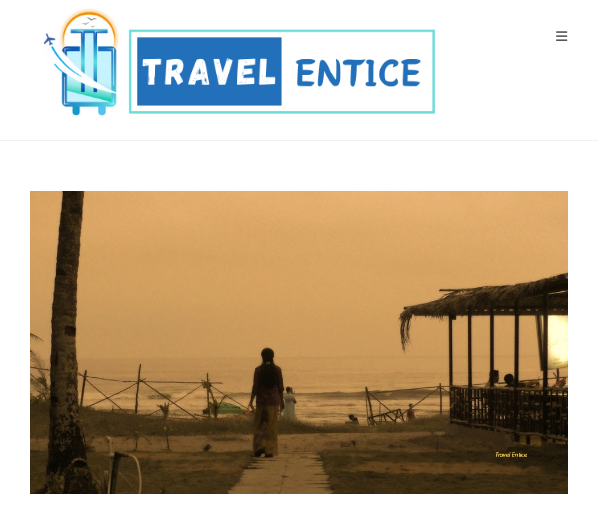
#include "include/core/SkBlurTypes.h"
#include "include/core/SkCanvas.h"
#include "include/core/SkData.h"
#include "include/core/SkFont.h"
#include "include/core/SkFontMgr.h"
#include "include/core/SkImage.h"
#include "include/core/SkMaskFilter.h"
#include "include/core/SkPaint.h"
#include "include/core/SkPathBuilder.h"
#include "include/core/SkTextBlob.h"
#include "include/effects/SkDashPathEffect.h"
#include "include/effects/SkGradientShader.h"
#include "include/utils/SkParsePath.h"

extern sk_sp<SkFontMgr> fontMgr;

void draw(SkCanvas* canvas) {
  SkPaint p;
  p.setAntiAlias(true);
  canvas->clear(SK_ColorWHITE);
  p.setColor(SkColorSetRGB(241, 241, 241));
  canvas->drawRect(SkRect::MakeLTRB(0, 140, 598, 141), p);
  canvas->drawImageRect(SkImages::DeferredFromEncodedData(SkData::MakeFromFileName("images/1.png")), SkRect::MakeLTRB(43, 8, 435, 116), SkSamplingOptions());
  canvas->drawImageRect(SkImages::DeferredFromEncodedData(SkData::MakeFromFileName("images/2.png")), SkRect::MakeLTRB(556, 31, 568, 41), SkSamplingOptions());
  canvas->drawImageRect(SkImages::DeferredFromEncodedData(SkData::MakeFromFileName("images/3.png")), SkRect::MakeLTRB(30, 191, 568, 494), SkSamplingOptions());
}
